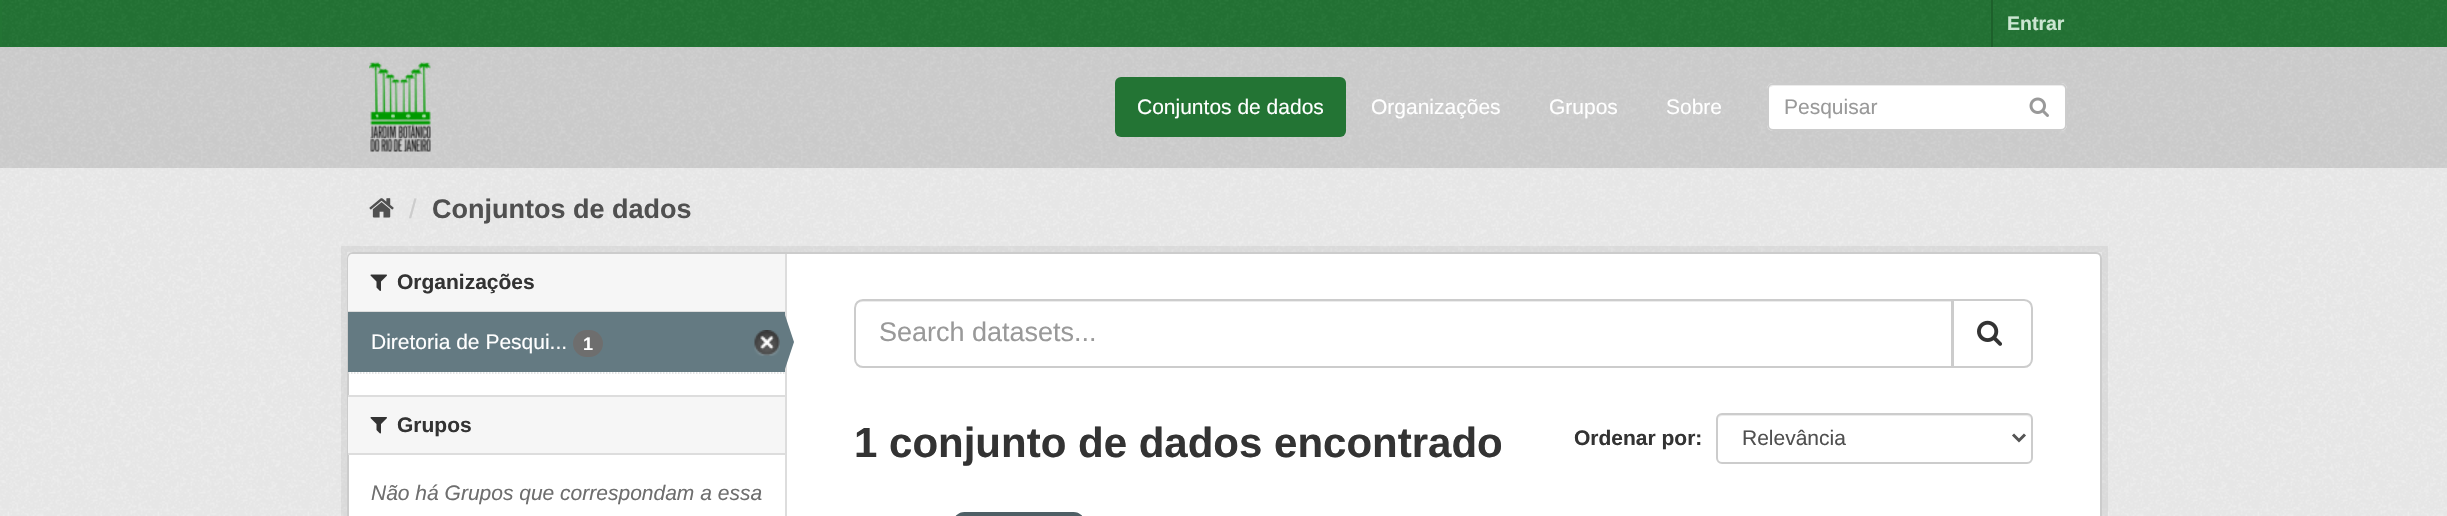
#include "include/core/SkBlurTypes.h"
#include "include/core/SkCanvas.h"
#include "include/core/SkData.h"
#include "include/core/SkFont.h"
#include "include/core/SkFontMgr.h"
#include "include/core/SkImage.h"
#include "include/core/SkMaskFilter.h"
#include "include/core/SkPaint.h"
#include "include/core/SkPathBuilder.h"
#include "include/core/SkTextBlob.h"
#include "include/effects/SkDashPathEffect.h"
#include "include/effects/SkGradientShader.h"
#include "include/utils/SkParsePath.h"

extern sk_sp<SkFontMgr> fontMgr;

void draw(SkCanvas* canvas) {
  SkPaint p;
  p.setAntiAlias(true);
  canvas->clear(SkColorSetRGB(35, 116, 52));
  canvas->drawImageRect(SkImages::DeferredFromEncodedData(SkData::MakeFromFileName("images/1.png")), SkRect::MakeLTRB(2, 0, 2446, 46), SkSamplingOptions());
  p.setColor(SkColorSetRGB(29, 96, 43));
  canvas->drawRect(SkRect::MakeLTRB(1991, 0, 1993, 47), p);
  p.setColor(SkColorSetRGB(209, 209, 209));
  canvas->drawRect(SkRect::MakeLTRB(0, 47, 2447, 168), p);
  canvas->drawImageRect(SkImages::DeferredFromEncodedData(SkData::MakeFromFileName("images/2.png")), SkRect::MakeLTRB(0, 47, 2447, 168), SkSamplingOptions());
  canvas->drawImageRect(SkImages::DeferredFromEncodedData(SkData::MakeFromFileName("images/3.png")), SkRect::MakeLTRB(369, 61, 431, 152), SkSamplingOptions());
  p.setColor(SkColorSetRGB(35, 116, 52));
  canvas->drawRoundRect(SkRect::MakeLTRB(1115, 77, 1346, 137), 6, 6, p);
  p.setColor(SK_ColorWHITE);
  canvas->drawRoundRect(SkRect::MakeLTRB(1767, 83, 2067, 131), 6, 6, p);
  p.setColor(SkColorSetRGB(236, 236, 236));
  canvas->drawPath(SkPathBuilder().moveTo(1773, 86).lineTo(2061, 86).cubicTo(2063, 86, 2066, 88, 2066, 90).lineTo(2066, 89).cubicTo(2066, 86, 2064, 84, 2061, 84).lineTo(1774, 84).cubicTo(1772, 84, 1770, 86, 1769, 88).cubicTo(1770, 87, 1772, 86, 1773, 86).close().detach(), p);
  p.setStyle(SkPaint::kStroke_Style);
  p.setStrokeWidth(2);
  p.setColor(SkColorSetRGB(204, 204, 204));
  canvas->drawRoundRect(SkRect::MakeLTRB(1768, 84, 2066, 130), 5, 5, p);
  canvas->drawImageRect(SkImages::DeferredFromEncodedData(SkData::MakeFromFileName("images/4.png")), SkRect::MakeLTRB(2029, 97, 2049, 117), SkSamplingOptions());
  p.setStyle(SkPaint::kFill_Style);
  p.setColor(SkColorSetRGB(238, 238, 238));
  canvas->drawRect(SkRect::MakeLTRB(0, 168, 2447, 516), p);
  canvas->drawImageRect(SkImages::DeferredFromEncodedData(SkData::MakeFromFileName("images/5.png")), SkRect::MakeLTRB(0, 168, 2447, 516), SkSamplingOptions());
  canvas->drawImageRect(SkImages::DeferredFromEncodedData(SkData::MakeFromFileName("images/6.png")), SkRect::MakeLTRB(369, 198, 394, 218), SkSamplingOptions());
  p.setStyle(SkPaint::kStroke_Style);
  p.setStrokeWidth(6);
  p.setColor(SkColorSetARGB(13, 0, 0, 0));
  canvas->drawRect(SkRect::MakeLTRB(344, 249, 2105, 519), p);
  p.setStyle(SkPaint::kFill_Style);
  p.setColor(SK_ColorWHITE);
  canvas->drawRoundRect(SkRect::MakeLTRB(348, 253, 2101, 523), 5, 5, p);
  p.setStyle(SkPaint::kStroke_Style);
  p.setStrokeWidth(2);
  p.setColor(SkColorSetRGB(204, 204, 204));
  canvas->drawRoundRect(SkRect::MakeLTRB(348, 253, 2101, 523), 5, 5, p);
  p.setStyle(SkPaint::kFill_Style);
  p.setColor(SkColorSetRGB(246, 246, 246));
  canvas->drawPath(SkPathBuilder().moveTo(353, 254).lineTo(785, 254).lineTo(785, 312).lineTo(348, 312).lineTo(348, 259).cubicTo(348, 256, 350, 254, 353, 254).close().detach(), p);
  p.setColor(SkColorSetRGB(221, 221, 221));
  canvas->drawRect(SkRect::MakeLTRB(348, 311, 785, 312), p);
  canvas->drawImageRect(SkImages::DeferredFromEncodedData(SkData::MakeFromFileName("images/7.png")), SkRect::MakeLTRB(370, 274, 387, 291), SkSamplingOptions());
  p.setColor(SkColorSetRGB(100, 122, 130));
  canvas->drawRect(SkRect::MakeLTRB(348, 312, 785, 372), p);
  p.setColor(SkColorSetRGB(110, 110, 110));
  canvas->drawRoundRect(SkRect::MakeLTRB(573, 330, 603, 357), 13.5f, 13.5f, p);
  canvas->drawImageRect(SkImages::DeferredFromEncodedData(SkData::MakeFromFileName("images/8.png")), SkRect::MakeLTRB(754, 330, 780, 356), SkSamplingOptions());
  p.setColor(SkColorSetRGB(221, 221, 221));
  canvas->drawRect(SkRect::MakeLTRB(785, 254, 787, 516), p);
  p.setColor(SkColorSetRGB(100, 122, 130));
  canvas->drawPath(SkPathBuilder().moveTo(784, 372).lineTo(784, 312).lineTo(794, 342).close().detach(), p);
  p.setStyle(SkPaint::kStroke_Style);
  p.setStrokeWidth(1.5f);
  p.setColor(SkColorSetRGB(221, 221, 221));
  p.setPathEffect(SkDashPathEffect::Make({{1.5f, 1.5f}}, 0));
  canvas->drawPath(SkPathBuilder().moveTo(348, 373).lineTo(784.5f, 373).detach(), p);
  p.setPathEffect(nullptr);
  p.setStyle(SkPaint::kFill_Style);
  p.setColor(SkColorSetRGB(246, 246, 246));
  canvas->drawRect(SkRect::MakeLTRB(348, 397, 785, 453), p);
  p.setColor(SkColorSetRGB(221, 221, 221));
  canvas->drawRect(SkRect::MakeLTRB(348, 395, 785, 397), p);
  canvas->drawRect(SkRect::MakeLTRB(348, 453, 785, 455), p);
  canvas->drawImageRect(SkImages::DeferredFromEncodedData(SkData::MakeFromFileName("images/9.png")), SkRect::MakeLTRB(370, 417, 387, 434), SkSamplingOptions());
  p.setColor(SkColorSetRGB(236, 236, 236));
  canvas->drawPath(SkPathBuilder().moveTo(862, 302).lineTo(1952, 302).lineTo(1952, 300).lineTo(863, 300).cubicTo(859, 300, 855, 304, 855, 308).lineTo(855, 309).cubicTo(855, 305, 858, 302, 862, 302).close().detach(), p);
  p.setStyle(SkPaint::kStroke_Style);
  p.setStrokeWidth(2);
  p.setColor(SkColorSetRGB(204, 204, 204));
  canvas->drawPath(SkPathBuilder().moveTo(863, 300).lineTo(1952, 300).lineTo(1952, 367).lineTo(863, 367).cubicTo(858.5f, 367, 855, 363.5f, 855, 359).lineTo(855, 308).cubicTo(855, 303.5f, 858.5f, 300, 863, 300).close().detach(), p);
  p.setStyle(SkPaint::kFill_Style);
  p.setColor(SK_ColorWHITE);
  canvas->drawPath(SkPathBuilder().moveTo(1953, 300).lineTo(2024, 300).cubicTo(2028.5f, 300, 2032, 303.5f, 2032, 308).lineTo(2032, 359).cubicTo(2032, 363.5f, 2028.5f, 367, 2024, 367).lineTo(1953, 367).close().detach(), p);
  p.setStyle(SkPaint::kStroke_Style);
  p.setColor(SkColorSetRGB(204, 204, 204));
  canvas->drawPath(SkPathBuilder().moveTo(1953, 300).lineTo(2024, 300).cubicTo(2028.5f, 300, 2032, 303.5f, 2032, 308).lineTo(2032, 359).cubicTo(2032, 363.5f, 2028.5f, 367, 2024, 367).lineTo(1953, 367).close().detach(), p);
  canvas->drawImageRect(SkImages::DeferredFromEncodedData(SkData::MakeFromFileName("images/10.png")), SkRect::MakeLTRB(1977, 320, 2002, 346), SkSamplingOptions());
  p.setStyle(SkPaint::kFill_Style);
  p.setColor(SkColorSetRGB(236, 236, 236));
  canvas->drawPath(SkPathBuilder().moveTo(1722, 416).lineTo(2026, 416).cubicTo(2029, 416, 2031, 418, 2031, 420).cubicTo(2031, 417, 2029, 414, 2026, 414).lineTo(1723, 414).cubicTo(1720, 414, 1718, 417, 1718, 420).cubicTo(1718, 418, 1720, 416, 1722, 416).close().detach(), p);
  p.setStyle(SkPaint::kStroke_Style);
  p.setColor(SkColorSetRGB(204, 204, 204));
  canvas->drawRoundRect(SkRect::MakeLTRB(1717, 414, 2032, 463), 5, 5, p);
  p.setStrokeWidth(3);
  p.setColor(SkColorSetRGB(85, 85, 85));
  canvas->drawPath(SkPathBuilder().moveTo(2013, 434.5f).lineTo(2019, 440.5f).lineTo(2025, 434.5f).detach(), p);
  p.setStyle(SkPaint::kFill_Style);
  p.setColor(SkColorSetRGB(78, 95, 101));
  canvas->drawRoundRect(SkRect::MakeLTRB(953, 512, 1085, 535), 18.5f, 18.5f, p);
  SkFont font1(fontMgr->matchFamilyStyle("Liberation Sans", SkFontStyle::Bold()), 19.5f);
  font1.setSubpixel(true);
  p.setColor(SkColorSetRGB(203, 230, 209));
  canvas->drawString("Entrar", 2007, 30, font1, p);
  SkFont font2(fontMgr->matchFamilyStyle("Liberation Sans", SkFontStyle::Normal()), 21);
  font2.setSubpixel(true);
  p.setColor(SK_ColorWHITE);
  canvas->drawString("Conjuntos de dados", 1137, 114, font2, p);
  canvas->drawString("Organizações", 1371, 114, font2, p);
  canvas->drawString("Grupos", 1549, 114, font2, p);
  canvas->drawString("Sobre", 1666, 114, font2, p);
  p.setColor(SkColorSetRGB(153, 153, 153));
  canvas->drawString("Pesquisar", 1784, 114, font2, p);
  SkFont font3(fontMgr->matchFamilyStyle("Liberation Sans", SkFontStyle::Normal()), 27);
  font3.setSubpixel(true);
  p.setColor(SkColorSetRGB(204, 204, 204));
  canvas->drawString("/", 409, 218, font3, p);
  SkFont font4(fontMgr->matchFamilyStyle("Liberation Sans", SkFontStyle::Bold()), 27);
  font4.setSubpixel(true);
  p.setColor(SkColorSetRGB(80, 80, 80));
  canvas->drawString("Conjuntos de dados", 432, 218, font4, p);
  SkFont font5(fontMgr->matchFamilyStyle("Liberation Sans", SkFontStyle::Bold()), 21);
  font5.setSubpixel(true);
  p.setColor(SkColorSetRGB(51, 51, 51));
  canvas->drawString("Organizações", 397, 289, font5, p);
  p.setColor(SK_ColorWHITE);
  canvas->drawString("Diretoria de Pesqui...", 371, 349, font2, p);
  SkFont font6(fontMgr->matchFamilyStyle("Liberation Sans", SkFontStyle::Bold()), 18);
  font6.setSubpixel(true);
  canvas->drawString("1", 583, 350, font6, p);
  p.setColor(SkColorSetRGB(51, 51, 51));
  canvas->drawString("Grupos", 397, 432, font5, p);
  SkFont font7(fontMgr->matchFamilyStyle("Liberation Sans", SkFontStyle::Italic()), 21);
  font7.setSubpixel(true);
  p.setColor(SkColorSetRGB(110, 110, 110));
  canvas->drawString("Não há Grupos que correspondam a essa", 371, 500, font7, p);
  p.setColor(SkColorSetRGB(153, 153, 153));
  canvas->drawString("Search datasets...", 879, 341, font3, p);
  SkFont font8(fontMgr->matchFamilyStyle("Liberation Sans", SkFontStyle::Bold()), 42);
  font8.setSubpixel(true);
  p.setColor(SkColorSetRGB(51, 51, 51));
  canvas->drawString("1 conjunto de dados encontrado", 854, 457, font8, p);
  canvas->drawString("Ordenar por:", 1574, 445, font5, p);
  p.setColor(SkColorSetRGB(80, 80, 80));
  canvas->drawString("Relevância", 1742, 445, font2, p);
}
